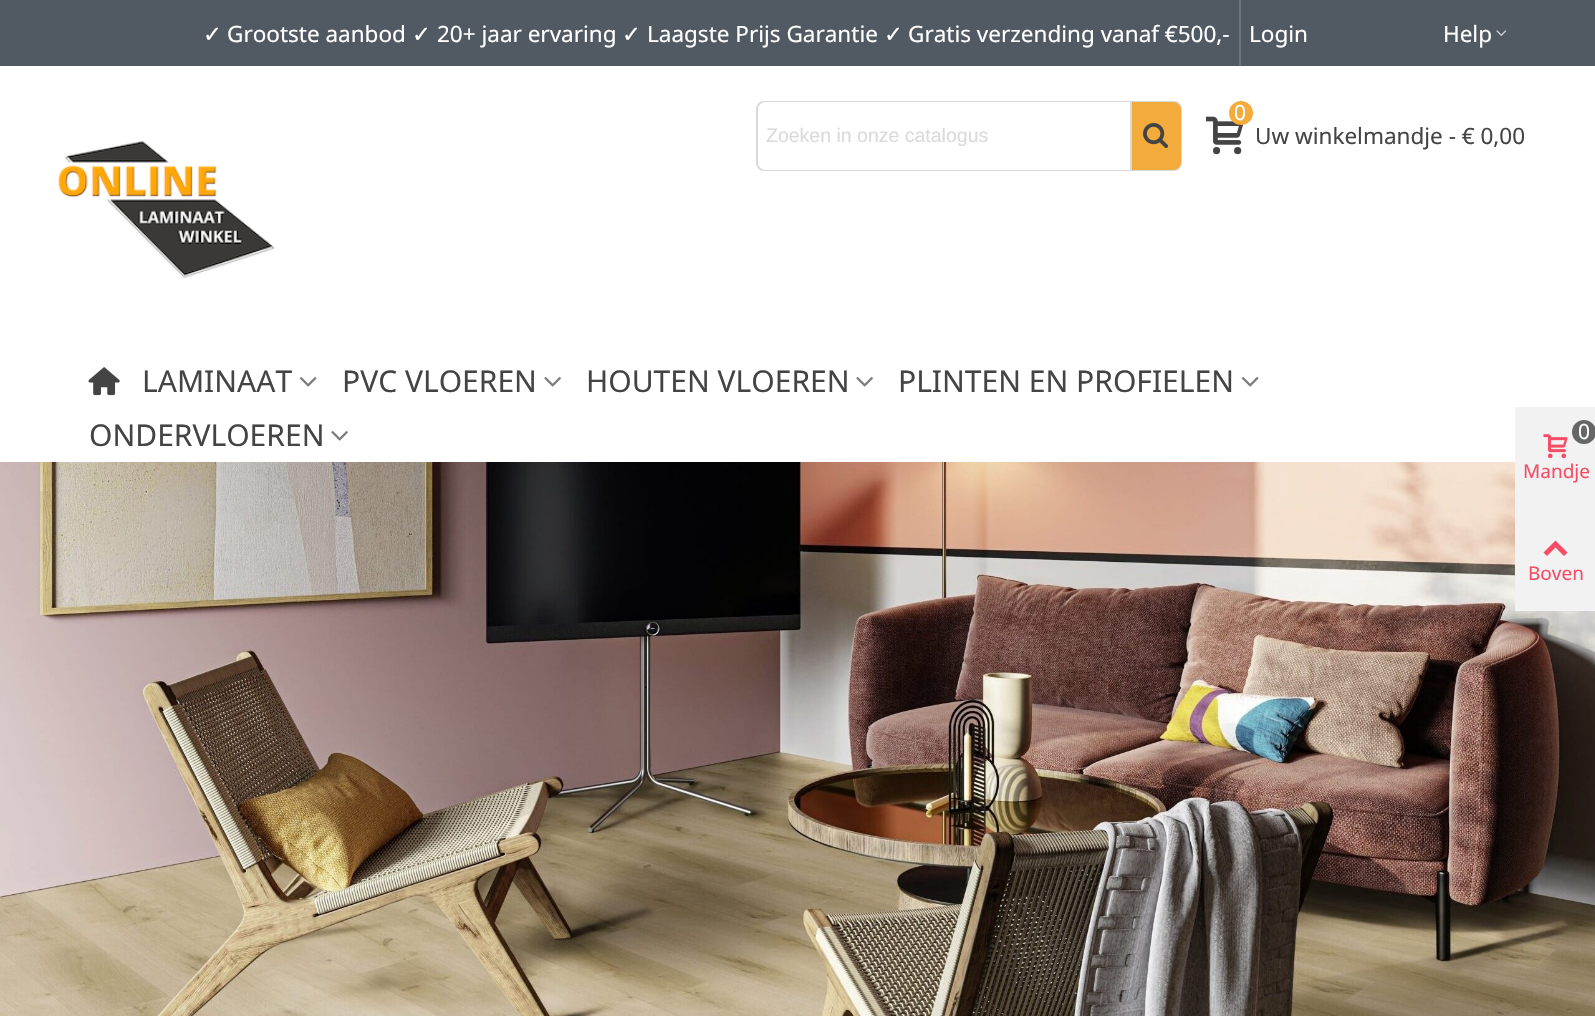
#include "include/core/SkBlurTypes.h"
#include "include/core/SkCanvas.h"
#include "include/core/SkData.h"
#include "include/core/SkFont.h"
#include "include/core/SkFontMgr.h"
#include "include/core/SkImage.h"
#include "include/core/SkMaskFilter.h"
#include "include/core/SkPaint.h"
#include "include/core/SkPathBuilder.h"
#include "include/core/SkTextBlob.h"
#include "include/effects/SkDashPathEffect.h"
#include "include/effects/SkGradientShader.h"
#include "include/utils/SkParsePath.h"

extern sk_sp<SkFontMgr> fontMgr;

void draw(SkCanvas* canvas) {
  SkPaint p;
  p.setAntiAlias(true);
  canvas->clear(SK_ColorWHITE);
  p.setColor(SkColorSetRGB(81, 89, 99));
  canvas->drawRect(SkRect::MakeLTRB(0, 0, 1595, 66), p);
  p.setColor(SkColorSetRGB(109, 117, 127));
  canvas->drawRect(SkRect::MakeLTRB(1239, 0, 1241, 66), p);
  canvas->drawImageRect(SkImages::DeferredFromEncodedData(SkData::MakeFromFileName("images/1.png")), SkRect::MakeLTRB(1496, 30, 1507, 36), SkSamplingOptions());
  p.setStyle(SkPaint::kStroke_Style);
  p.setStrokeWidth(2);
  p.setColor(SkColorSetRGB(217, 217, 217));
  canvas->drawRoundRect(SkRect::MakeLTRB(757, 102, 1181, 170), 7, 7, p);
  p.setStyle(SkPaint::kFill_Style);
  p.setColor(SK_ColorWHITE);
  canvas->drawPath(SkPathBuilder().moveTo(766, 102).lineTo(1130, 102).lineTo(1130, 170).lineTo(766, 170).cubicTo(761.5f, 170, 758, 166.5f, 758, 162).lineTo(758, 110).cubicTo(758, 105.5f, 761.5f, 102, 766, 102).close().detach(), p);
  p.setColor(SkColorSetRGB(243, 172, 60));
  canvas->drawPath(SkPathBuilder().moveTo(1130, 102).lineTo(1173, 102).cubicTo(1177.5f, 102, 1181, 105.5f, 1181, 110).lineTo(1181, 162).cubicTo(1181, 166.5f, 1177.5f, 170, 1173, 170).lineTo(1130, 170).close().detach(), p);
  p.setColor(SkColorSetRGB(217, 217, 217));
  canvas->drawRect(SkRect::MakeLTRB(1130, 102, 1132, 170), p);
  canvas->drawImageRect(SkImages::DeferredFromEncodedData(SkData::MakeFromFileName("images/2.png")), SkRect::MakeLTRB(1143, 123, 1169, 148), SkSamplingOptions());
  canvas->drawImageRect(SkImages::DeferredFromEncodedData(SkData::MakeFromFileName("images/3.png")), SkRect::MakeLTRB(1206, 116, 1244, 155), SkSamplingOptions());
  p.setColor(SkColorSetRGB(243, 172, 60));
  canvas->drawCircle(1241, 113, 12, p);
  canvas->drawImageRect(SkImages::DeferredFromEncodedData(SkData::MakeFromFileName("images/4.png")), SkRect::MakeLTRB(58, 141, 275, 278), SkSamplingOptions());
  canvas->drawImageRect(SkImages::DeferredFromEncodedData(SkData::MakeFromFileName("images/5.png")), SkRect::MakeLTRB(88, 367, 120, 396), SkSamplingOptions());
  canvas->drawImageRect(SkImages::DeferredFromEncodedData(SkData::MakeFromFileName("images/6.png")), SkRect::MakeLTRB(299, 377, 317, 387), SkSamplingOptions());
  canvas->drawImageRect(SkImages::DeferredFromEncodedData(SkData::MakeFromFileName("images/7.png")), SkRect::MakeLTRB(544, 377, 561, 387), SkSamplingOptions());
  canvas->drawImageRect(SkImages::DeferredFromEncodedData(SkData::MakeFromFileName("images/7.png")), SkRect::MakeLTRB(856, 377, 873, 387), SkSamplingOptions());
  canvas->drawImageRect(SkImages::DeferredFromEncodedData(SkData::MakeFromFileName("images/6.png")), SkRect::MakeLTRB(1241, 377, 1259, 387), SkSamplingOptions());
  canvas->drawImageRect(SkImages::DeferredFromEncodedData(SkData::MakeFromFileName("images/7.png")), SkRect::MakeLTRB(331, 431, 348, 441), SkSamplingOptions());
  canvas->drawImageRect(SkImages::DeferredFromEncodedData(SkData::MakeFromFileName("images/8.png")), SkRect::MakeLTRB(0, 462, 1595, 1016), SkSamplingOptions());
  p.setColor(SkColorSetRGB(242, 242, 242));
  canvas->drawRect(SkRect::MakeLTRB(1515, 407, 1595, 611), p);
  p.setColor(SkColorSetRGB(102, 102, 102));
  canvas->drawCircle(1584, 432, 12, p);
  canvas->drawImageRect(SkImages::DeferredFromEncodedData(SkData::MakeFromFileName("images/9.png")), SkRect::MakeLTRB(1543, 434, 1568, 459), SkSamplingOptions());
  p.setColor(SkColorSetRGB(246, 76, 101));
  canvas->drawPath(SkPathBuilder().moveTo(1543.5f, 552.5f).lineTo(1555.5f, 540.5f).lineTo(1567.5f, 552.5f).lineTo(1564, 556).lineTo(1555.5f, 547.5f).lineTo(1547, 556).close().detach(), p);
  SkFont font1(fontMgr->matchFamilyStyle("DejaVu Sans", SkFontStyle::Normal()), 22.5f);
  font1.setSubpixel(true);
  p.setColor(SK_ColorWHITE);
  canvas->drawString("✓", 203, 42, font1, p);
  SkFont font2(fontMgr->matchFamilyStyle("Noto Sans", SkFontStyle::Normal()), 22.5f);
  font2.setSubpixel(true);
  canvas->drawString("Grootste aanbod", 227, 42, font2, p);
  canvas->drawString("✓", 412, 42, font1, p);
  canvas->drawString("20+ jaar ervaring", 437, 42, font2, p);
  canvas->drawString("✓", 622, 42, font1, p);
  canvas->drawString("Laagste Prijs Garantie", 647, 42, font2, p);
  canvas->drawString("✓", 884, 42, font1, p);
  canvas->drawString("Gratis verzending vanaf €500,-", 908, 42, font2, p);
  canvas->drawString("Login", 1249, 42, font2, p);
  canvas->drawString("Help", 1443, 42, font2, p);
  SkFont font3(fontMgr->matchFamilyStyle("Liberation Sans", SkFontStyle::Normal()), 19.5f);
  font3.setSubpixel(true);
  p.setColor(SkColorSetRGB(218, 218, 218));
  canvas->drawString("Zoeken in onze catalogus", 766, 142, font3, p);
  SkFont font4(fontMgr->matchFamilyStyle("Noto Sans", SkFontStyle::Normal()), 21);
  font4.setSubpixel(true);
  p.setColor(SK_ColorWHITE);
  canvas->drawString("0", 1234, 120, font4, p);
  p.setColor(SkColorSetRGB(68, 68, 68));
  canvas->drawString("Uw winkelmandje - € 0,00", 1255, 144, font2, p);
  SkFont font5(fontMgr->matchFamilyStyle("Noto Sans", SkFontStyle::Normal()), 30);
  font5.setSubpixel(true);
  canvas->drawString("LAMINAAT", 142, 392, font5, p);
  canvas->drawString("PVC VLOEREN", 342, 392, font5, p);
  canvas->drawString("HOUTEN VLOEREN", 586, 392, font5, p);
  canvas->drawString("PLINTEN EN PROFIELEN", 898, 392, font5, p);
  canvas->drawString("ONDERVLOEREN", 89, 446, font5, p);
  p.setColor(SK_ColorWHITE);
  canvas->drawString("0", 1578, 439, font4, p);
  SkFont font6(fontMgr->matchFamilyStyle("Noto Sans", SkFontStyle::Normal()), 19);
  font6.setSubpixel(true);
  p.setColor(SkColorSetRGB(246, 76, 101));
  canvas->drawString("Mandje", 1523, 478, font6, p);
  canvas->drawString("Boven", 1528, 580, font6, p);
}
